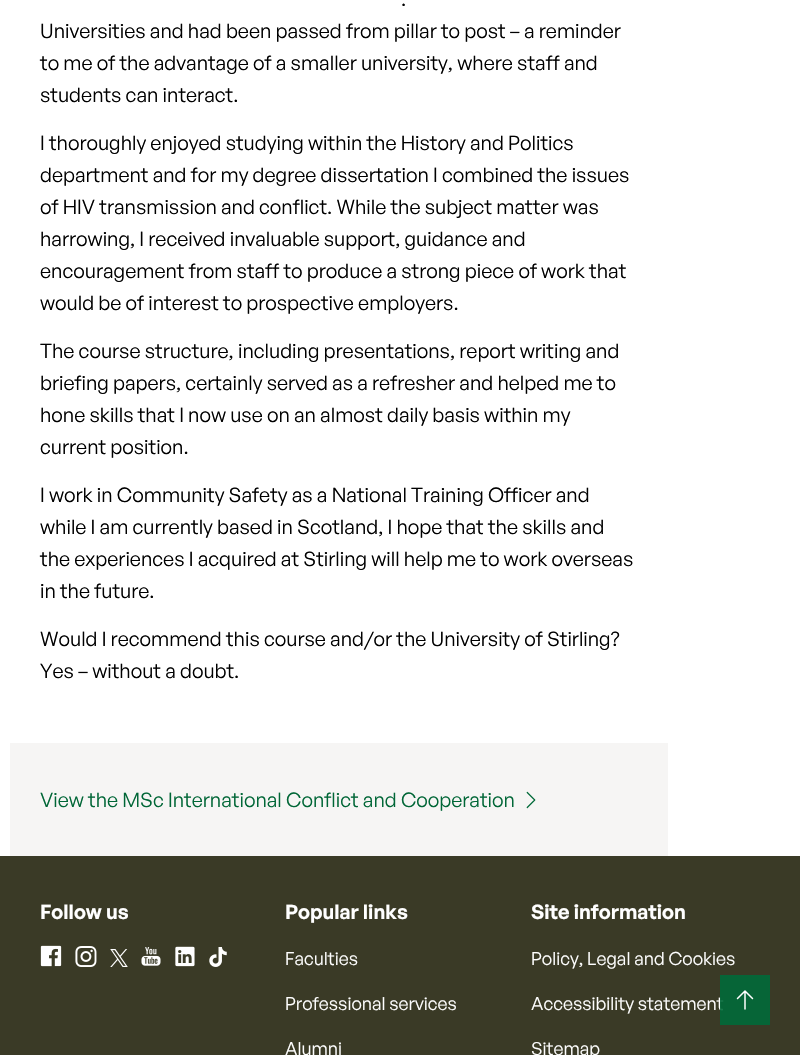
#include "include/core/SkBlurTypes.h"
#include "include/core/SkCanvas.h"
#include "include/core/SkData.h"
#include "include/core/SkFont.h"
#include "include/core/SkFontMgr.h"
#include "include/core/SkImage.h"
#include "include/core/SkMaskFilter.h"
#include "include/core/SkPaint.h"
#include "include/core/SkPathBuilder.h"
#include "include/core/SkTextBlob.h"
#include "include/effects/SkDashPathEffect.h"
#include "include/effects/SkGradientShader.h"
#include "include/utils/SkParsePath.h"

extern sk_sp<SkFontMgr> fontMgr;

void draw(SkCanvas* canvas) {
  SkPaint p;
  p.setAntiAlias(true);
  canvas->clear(SK_ColorWHITE);
  p.setColor(SkColorSetRGB(246, 245, 244));
  canvas->drawRect(SkRect::MakeLTRB(10, 743, 668, 856), p);
  canvas->drawImageRect(SkImages::DeferredFromEncodedData(SkData::MakeFromFileName("images/1.png")), SkRect::MakeLTRB(526, 791, 536, 809), SkSamplingOptions());
  p.setColor(SkColorSetRGB(58, 58, 38));
  canvas->drawRect(SkRect::MakeLTRB(0, 856, 800, 1055), p);
  canvas->drawImageRect(SkImages::DeferredFromEncodedData(SkData::MakeFromFileName("images/2.png")), SkRect::MakeLTRB(40, 945, 62, 967), SkSamplingOptions());
  canvas->drawImageRect(SkImages::DeferredFromEncodedData(SkData::MakeFromFileName("images/3.png")), SkRect::MakeLTRB(75, 946, 97, 967), SkSamplingOptions());
  canvas->drawImageRect(SkImages::DeferredFromEncodedData(SkData::MakeFromFileName("images/4.png")), SkRect::MakeLTRB(110, 949, 128, 967), SkSamplingOptions());
  canvas->drawImageRect(SkImages::DeferredFromEncodedData(SkData::MakeFromFileName("images/5.png")), SkRect::MakeLTRB(141, 947, 161, 966), SkSamplingOptions());
  canvas->drawImageRect(SkImages::DeferredFromEncodedData(SkData::MakeFromFileName("images/6.png")), SkRect::MakeLTRB(175, 946, 195, 967), SkSamplingOptions());
  canvas->drawImageRect(SkImages::DeferredFromEncodedData(SkData::MakeFromFileName("images/7.png")), SkRect::MakeLTRB(209, 947, 227, 967), SkSamplingOptions());
  SkFont font1(fontMgr->matchFamilyStyle("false", SkFontStyle::Normal()), 20);
  font1.setSubpixel(true);
  p.setColor(SK_ColorBLACK);
  canvas->drawString(".", 401, 6, font1, p);
  canvas->drawString("Universities and had been passed from pillar to post – a reminder", 40, 38, font1, p);
  canvas->drawString("to me of the advantage of a smaller university, where staff and", 40, 70, font1, p);
  canvas->drawString("students can interact.", 40, 102, font1, p);
  canvas->drawString("I thoroughly enjoyed studying within the History and Politics", 40, 150, font1, p);
  canvas->drawString("department and for my degree dissertation I combined the issues", 40, 182, font1, p);
  canvas->drawString("of HIV transmission and conflict. While the subject matter was", 40, 214, font1, p);
  canvas->drawString("harrowing, I received invaluable support, guidance and", 40, 246, font1, p);
  canvas->drawString("encouragement from staff to produce a strong piece of work that", 40, 278, font1, p);
  canvas->drawString("would be of interest to prospective employers.", 40, 310, font1, p);
  canvas->drawString("The course structure, including presentations, report writing and", 40, 358, font1, p);
  canvas->drawString("briefing papers, certainly served as a refresher and helped me to", 40, 390, font1, p);
  canvas->drawString("hone skills that I now use on an almost daily basis within my", 40, 422, font1, p);
  canvas->drawString("current position.", 40, 454, font1, p);
  canvas->drawString("I work in Community Safety as a National Training Officer and", 40, 502, font1, p);
  canvas->drawString("while I am currently based in Scotland, I hope that the skills and", 40, 534, font1, p);
  canvas->drawString("the experiences I acquired at Stirling will help me to work overseas", 40, 566, font1, p);
  canvas->drawString("in the future.", 40, 598, font1, p);
  canvas->drawString("Would I recommend this course and/or the University of Stirling?", 40, 646, font1, p);
  canvas->drawString("Yes – without a doubt.", 40, 678, font1, p);
  p.setColor(SkColorSetRGB(0, 102, 54));
  canvas->drawString("View the MSc International Conflict and Cooperation", 40, 807, font1, p);
  SkFont font2(fontMgr->matchFamilyStyle("General Sans", SkFontStyle(600, SkFontStyle::kNormal_Width, SkFontStyle::kUpright_Slant)), 20);
  font2.setSubpixel(true);
  p.setColor(SK_ColorWHITE);
  canvas->drawString("Follow us", 40, 919, font2, p);
  canvas->drawString("Popular links", 285, 919, font2, p);
  SkFont font3(fontMgr->matchFamilyStyle("false", SkFontStyle::Normal()), 18);
  font3.setSubpixel(true);
  canvas->drawString("Faculties", 285, 965, font3, p);
  canvas->drawString("Professional services", 285, 1010, font3, p);
  canvas->drawString("Alumni", 285, 1055, font3, p);
  canvas->drawString("Site information", 531, 919, font2, p);
  canvas->drawString("Policy, Legal and Cookies", 531, 965, font3, p);
  canvas->drawString("Accessibility statement", 531, 1010, font3, p);
  canvas->drawString("Sitemap", 531, 1055, font3, p);
  p.setColor(SkColorSetARGB(230, 0, 105, 56));
  canvas->drawRect(SkRect::MakeLTRB(720, 975, 770, 1025), p);
  p.setStyle(SkPaint::kStroke_Style);
  p.setStrokeWidth(1.5f);
  p.setStrokeCap(SkPaint::kRound_Cap);
  p.setStrokeJoin(SkPaint::kRound_Join);
  p.setColor(SK_ColorWHITE);
  canvas->drawPath(SkPathBuilder().moveTo(737.5f, 998.5f).lineTo(745, 991).moveTo(745, 991).lineTo(752.5f, 998.5f).moveTo(745, 991).lineTo(745, 1009).detach(), p);
}
